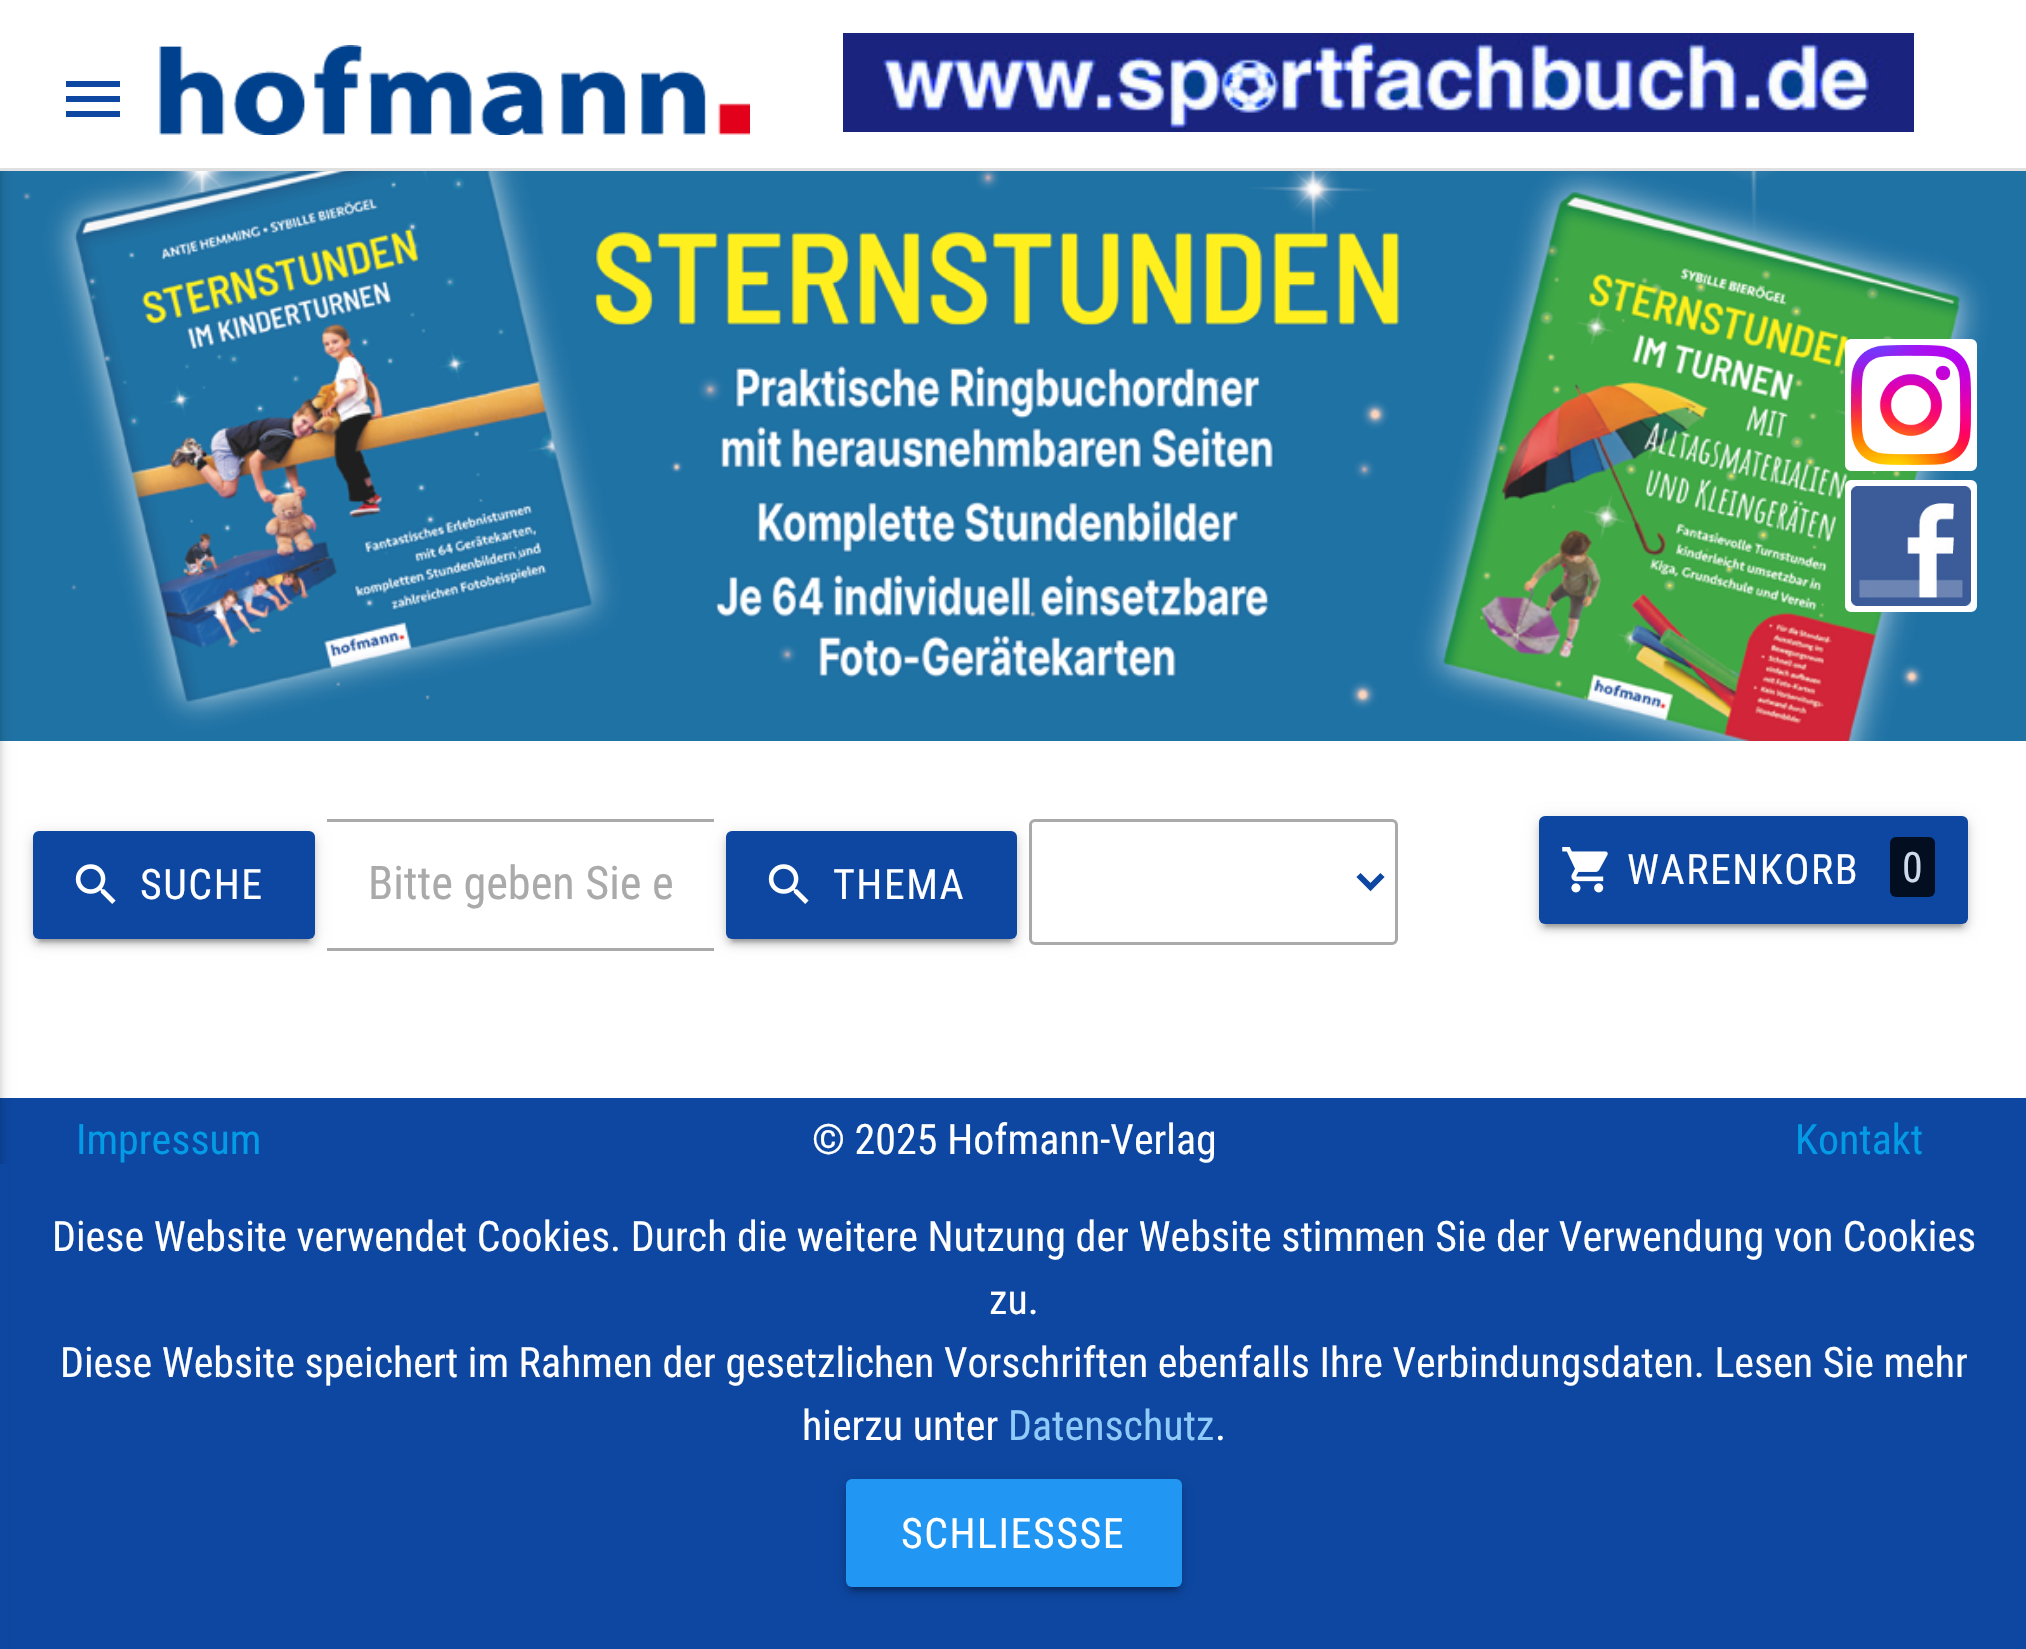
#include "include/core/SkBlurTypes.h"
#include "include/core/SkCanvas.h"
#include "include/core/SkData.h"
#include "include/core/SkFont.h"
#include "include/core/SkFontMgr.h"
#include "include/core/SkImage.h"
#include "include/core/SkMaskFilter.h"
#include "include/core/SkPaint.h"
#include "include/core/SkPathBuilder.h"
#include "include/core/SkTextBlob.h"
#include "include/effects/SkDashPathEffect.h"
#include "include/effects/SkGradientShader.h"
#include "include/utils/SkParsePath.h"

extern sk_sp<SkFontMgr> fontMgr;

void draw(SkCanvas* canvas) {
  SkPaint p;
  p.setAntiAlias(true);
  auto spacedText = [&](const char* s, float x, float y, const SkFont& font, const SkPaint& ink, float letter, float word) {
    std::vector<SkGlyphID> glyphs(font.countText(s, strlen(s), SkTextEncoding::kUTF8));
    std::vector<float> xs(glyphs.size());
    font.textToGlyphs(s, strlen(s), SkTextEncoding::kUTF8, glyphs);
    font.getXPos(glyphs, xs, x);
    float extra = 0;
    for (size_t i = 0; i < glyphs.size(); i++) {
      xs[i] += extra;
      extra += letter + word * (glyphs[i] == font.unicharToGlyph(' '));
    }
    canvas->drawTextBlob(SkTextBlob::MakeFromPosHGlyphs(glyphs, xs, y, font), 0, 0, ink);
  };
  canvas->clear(SkColorSetRGB(13, 71, 161));
  p.setColor(SK_ColorWHITE);
  canvas->drawRect(SkRect::MakeLTRB(0, 171, 2026, 1098), p);
  canvas->drawImageRect(SkImages::DeferredFromEncodedData(SkData::MakeFromFileName("images/3.png")), SkRect::MakeLTRB(0, 171, 2026, 741), SkSamplingOptions());
  p.setColor(SkColorSetARGB(31, 0, 0, 0));
  p.setMaskFilter(SkMaskFilter::MakeBlur(kNormal_SkBlurStyle, 7.5f));
  canvas->drawRect(SkRect::MakeLTRB(-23, 141, 0, 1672), p);
  p.setMaskFilter(nullptr);
  p.setColor(SkColorSetARGB(36, 0, 0, 0));
  p.setMaskFilter(SkMaskFilter::MakeBlur(kNormal_SkBlurStyle, 3));
  canvas->drawRect(SkRect::MakeLTRB(-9, 144, 0, 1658), p);
  p.setMaskFilter(nullptr);
  p.setColor(SK_ColorWHITE);
  canvas->drawRect(SkRect::MakeLTRB(0, 0, 2026, 168), p);
  p.setColor(SkColorSetRGB(224, 224, 224));
  canvas->drawRect(SkRect::MakeLTRB(0, 168, 2026, 171), p);
  p.setColor(SkColorSetRGB(13, 71, 161));
  canvas->drawPath(SkPathBuilder().moveTo(66, 81).lineTo(120, 81).lineTo(120, 87).lineTo(66, 87).close().moveTo(66, 102).lineTo(66, 96).lineTo(120, 96).lineTo(120, 102).close().moveTo(66, 117).lineTo(66, 111).lineTo(120, 111).lineTo(120, 117).close().detach(), p);
  canvas->drawImageRect(SkImages::DeferredFromEncodedData(SkData::MakeFromFileName("images/1.png")), SkRect::MakeLTRB(159, 45, 750, 135), SkSamplingOptions());
  canvas->drawImageRect(SkImages::DeferredFromEncodedData(SkData::MakeFromFileName("images/2.png")), SkRect::MakeLTRB(843, 33, 1914, 132), SkSamplingOptions());
  p.setColor(SK_ColorWHITE);
  canvas->drawRoundRect(SkRect::MakeLTRB(1848, 342, 1974, 468), 3, 3, p);
  p.setStyle(SkPaint::kStroke_Style);
  p.setStrokeWidth(6);
  canvas->drawRoundRect(SkRect::MakeLTRB(1848, 342, 1974, 468), 3, 3, p);
  canvas->drawImageRect(SkImages::DeferredFromEncodedData(SkData::MakeFromFileName("images/4.png")), SkRect::MakeLTRB(1851, 345, 1971, 465), SkSamplingOptions());
  canvas->drawRoundRect(SkRect::MakeLTRB(1848, 483, 1974, 609), 3, 3, p);
  canvas->drawImageRect(SkImages::DeferredFromEncodedData(SkData::MakeFromFileName("images/5.png")), SkRect::MakeLTRB(1851, 486, 1971, 606), SkSamplingOptions());
  p.setStyle(SkPaint::kFill_Style);
  p.setColor(SkColorSetARGB(51, 0, 0, 0));
  p.setMaskFilter(SkMaskFilter::MakeBlur(kNormal_SkBlurStyle, 1.5f));
  canvas->drawRect(SkRect::MakeLTRB(39, 846, 309, 942), p);
  p.setMaskFilter(nullptr);
  p.setColor(SkColorSetRGB(170, 170, 170));
  canvas->drawRect(SkRect::MakeLTRB(327, 819, 714, 822), p);
  canvas->drawRect(SkRect::MakeLTRB(327, 948, 714, 951), p);
  p.setColor(SkColorSetARGB(31, 0, 0, 0));
  p.setMaskFilter(SkMaskFilter::MakeBlur(kNormal_SkBlurStyle, 7.5f));
  canvas->drawRoundRect(SkRect::MakeLTRB(33, 834, 315, 942), 6, 6, p);
  p.setMaskFilter(nullptr);
  p.setColor(SkColorSetARGB(36, 0, 0, 0));
  p.setMaskFilter(SkMaskFilter::MakeBlur(kNormal_SkBlurStyle, 3));
  canvas->drawRoundRect(SkRect::MakeLTRB(33, 837, 315, 945), 6, 6, p);
  p.setMaskFilter(nullptr);
  p.setColor(SkColorSetRGB(13, 71, 161));
  canvas->drawRoundRect(SkRect::MakeLTRB(33, 831, 315, 939), 6, 6, p);
  canvas->drawImageRect(SkImages::DeferredFromEncodedData(SkData::MakeFromFileName("images/6.png")), SkRect::MakeLTRB(75, 864, 116, 904), SkSamplingOptions());
  p.setColor(SkColorSetARGB(51, 0, 0, 0));
  p.setMaskFilter(SkMaskFilter::MakeBlur(kNormal_SkBlurStyle, 1.5f));
  canvas->drawRect(SkRect::MakeLTRB(732, 846, 1011, 942), p);
  p.setMaskFilter(nullptr);
  p.setStyle(SkPaint::kStroke_Style);
  p.setStrokeWidth(3);
  p.setColor(SkColorSetRGB(170, 170, 170));
  canvas->drawRoundRect(SkRect::MakeLTRB(1030.5f, 820.5f, 1396.5f, 943.5f), 4.5f, 4.5f, p);
  p.setStyle(SkPaint::kFill_Style);
  p.setColor(SkColorSetARGB(31, 0, 0, 0));
  p.setMaskFilter(SkMaskFilter::MakeBlur(kNormal_SkBlurStyle, 7.5f));
  canvas->drawRoundRect(SkRect::MakeLTRB(726, 834, 1017, 942), 6, 6, p);
  p.setMaskFilter(nullptr);
  p.setColor(SkColorSetARGB(36, 0, 0, 0));
  p.setMaskFilter(SkMaskFilter::MakeBlur(kNormal_SkBlurStyle, 3));
  canvas->drawRoundRect(SkRect::MakeLTRB(726, 837, 1017, 945), 6, 6, p);
  p.setMaskFilter(nullptr);
  p.setColor(SkColorSetRGB(13, 71, 161));
  canvas->drawRoundRect(SkRect::MakeLTRB(726, 831, 1017, 939), 6, 6, p);
  canvas->drawImageRect(SkImages::DeferredFromEncodedData(SkData::MakeFromFileName("images/6.png")), SkRect::MakeLTRB(768, 864, 809, 904), SkSamplingOptions());
  p.setStyle(SkPaint::kStroke_Style);
  p.setStrokeWidth(6);
  canvas->drawPath(SkPathBuilder().moveTo(1358.5f, 875).lineTo(1370.5f, 887).lineTo(1382.5f, 875).detach(), p);
  p.setStyle(SkPaint::kFill_Style);
  p.setColor(SkColorSetARGB(51, 0, 0, 0));
  p.setMaskFilter(SkMaskFilter::MakeBlur(kNormal_SkBlurStyle, 1.5f));
  canvas->drawRect(SkRect::MakeLTRB(1545, 831, 1962, 927), p);
  p.setMaskFilter(nullptr);
  p.setColor(SkColorSetARGB(31, 0, 0, 0));
  p.setMaskFilter(SkMaskFilter::MakeBlur(kNormal_SkBlurStyle, 7.5f));
  canvas->drawRoundRect(SkRect::MakeLTRB(1539, 819, 1968, 927), 6, 6, p);
  p.setMaskFilter(nullptr);
  p.setColor(SkColorSetARGB(36, 0, 0, 0));
  p.setMaskFilter(SkMaskFilter::MakeBlur(kNormal_SkBlurStyle, 3));
  canvas->drawRoundRect(SkRect::MakeLTRB(1539, 822, 1968, 930), 6, 6, p);
  p.setMaskFilter(nullptr);
  p.setColor(SkColorSetRGB(13, 71, 161));
  canvas->drawRoundRect(SkRect::MakeLTRB(1539, 816, 1968, 924), 6, 6, p);
  canvas->drawImageRect(SkImages::DeferredFromEncodedData(SkData::MakeFromFileName("images/7.png")), SkRect::MakeLTRB(1562, 847, 1608, 893), SkSamplingOptions());
  p.setColor(SkColorSetRGB(3, 14, 32));
  canvas->drawRoundRect(SkRect::MakeLTRB(1890, 837, 1935, 897), 6, 6, p);
  p.setColor(SkColorSetRGB(13, 71, 161));
  canvas->drawRect(SkRect::MakeLTRB(0, 1164, 8, 1649), p);
  p.setColor(SkColorSetARGB(51, 0, 0, 0));
  p.setMaskFilter(SkMaskFilter::MakeBlur(kNormal_SkBlurStyle, 1.5f));
  canvas->drawRect(SkRect::MakeLTRB(852, 1494, 1176, 1590), p);
  p.setMaskFilter(nullptr);
  p.setColor(SkColorSetARGB(31, 0, 0, 0));
  p.setMaskFilter(SkMaskFilter::MakeBlur(kNormal_SkBlurStyle, 7.5f));
  canvas->drawRoundRect(SkRect::MakeLTRB(846, 1482, 1182, 1590), 6, 6, p);
  p.setMaskFilter(nullptr);
  p.setColor(SkColorSetARGB(36, 0, 0, 0));
  p.setMaskFilter(SkMaskFilter::MakeBlur(kNormal_SkBlurStyle, 3));
  canvas->drawRoundRect(SkRect::MakeLTRB(846, 1485, 1182, 1593), 6, 6, p);
  p.setMaskFilter(nullptr);
  p.setColor(SkColorSetRGB(33, 150, 243));
  canvas->drawRoundRect(SkRect::MakeLTRB(846, 1479, 1182, 1587), 6, 6, p);
  SkFont font1(fontMgr->matchFamilyStyle("Roboto Condensed", SkFontStyle::Normal()), 42);
  font1.setSubpixel(true);
  p.setColor(SK_ColorWHITE);
  spacedText("SUCHE", 140, 899, font1, p, 1.5f, 0);
  SkFont font2(fontMgr->matchFamilyStyle("Roboto Condensed", SkFontStyle::Normal()), 46.25f);
  font2.setSubpixel(true);
  p.setColor(SkColorSetRGB(170, 170, 170));
  canvas->drawString("Bitte geben Sie e", 368, 899, font2, p);
  p.setColor(SK_ColorWHITE);
  spacedText("THEMA", 833, 899, font1, p, 1.5f, 0);
  spacedText("WARENKORB", 1627, 884, font1, p, 1.5f, 0);
  p.setColor(SkColorSetRGB(207, 218, 236));
  spacedText("0", 1902, 882, font1, p, 1.5f, 0);
  p.setColor(SkColorSetRGB(3, 155, 229));
  canvas->drawString("Impressum", 76, 1154, font1, p);
  p.setColor(SK_ColorWHITE);
  canvas->drawString("© 2025 Hofmann-Verlag", 812, 1154, font1, p);
  p.setColor(SkColorSetRGB(3, 155, 229));
  canvas->drawString("Kontakt", 1795, 1154, font1, p);
  p.setColor(SK_ColorWHITE);
  canvas->drawString("Diese Website verwendet Cookies. Durch die weitere Nutzung der Website stimmen Sie der Verwendung von Cookies", 52, 1251, font1, p);
  canvas->drawString("zu.", 989, 1314, font1, p);
  canvas->drawString("Diese Website speichert im Rahmen der gesetzlichen Vorschriften ebenfalls Ihre Verbindungsdaten. Lesen Sie mehr", 60, 1377, font1, p);
  canvas->drawString("hierzu unter", 802, 1440, font1, p);
  p.setColor(SkColorSetRGB(144, 202, 249));
  canvas->drawString("Datenschutz", 1008, 1440, font1, p);
  p.setColor(SK_ColorWHITE);
  canvas->drawString(".", 1215, 1440, font1, p);
  spacedText("SCHLIESSSE", 901, 1548, font1, p, 1.5f, 0);
}
